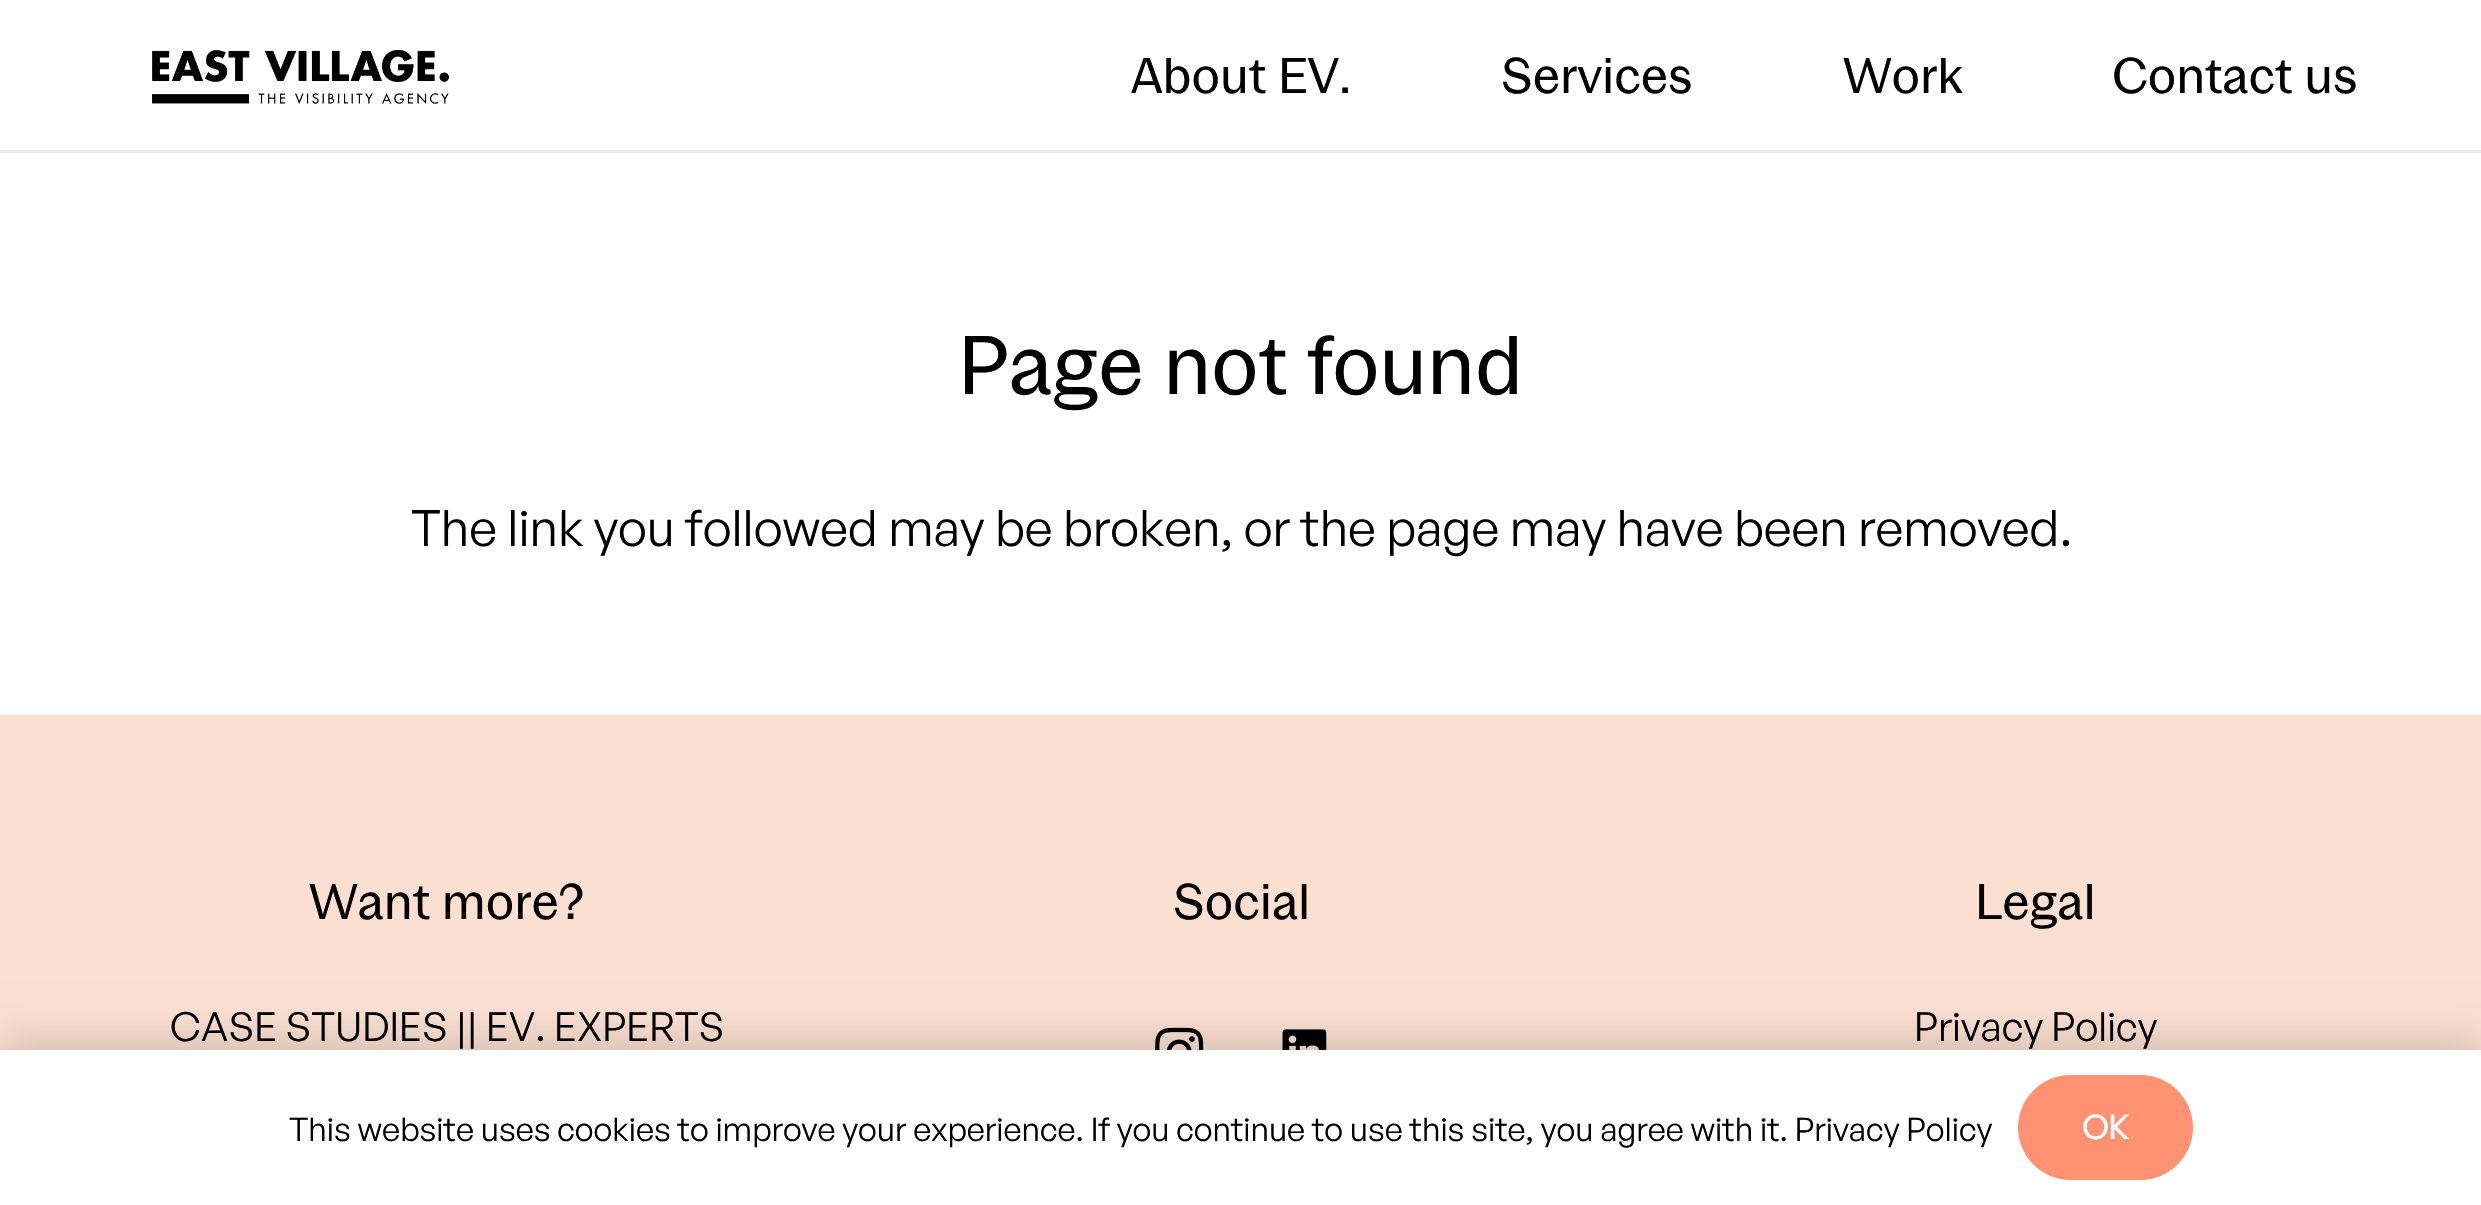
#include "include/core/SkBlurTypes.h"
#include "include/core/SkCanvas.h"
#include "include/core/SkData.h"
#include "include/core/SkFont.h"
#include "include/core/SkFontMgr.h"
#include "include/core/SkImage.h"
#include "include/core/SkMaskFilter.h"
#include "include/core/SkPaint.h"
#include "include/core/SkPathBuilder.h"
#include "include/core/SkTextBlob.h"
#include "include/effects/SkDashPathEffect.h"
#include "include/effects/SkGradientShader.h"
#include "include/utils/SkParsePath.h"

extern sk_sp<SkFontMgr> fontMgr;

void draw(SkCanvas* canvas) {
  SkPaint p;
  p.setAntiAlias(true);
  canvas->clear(SK_ColorWHITE);
  p.setColor(SkColorSetRGB(235, 235, 235));
  canvas->drawPath(SkPathBuilder().moveTo(0, 150).lineTo(0, 153).lineTo(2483, 153).lineTo(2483, 3).lineTo(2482, 3).lineTo(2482, 150).close().detach(), p);
  canvas->drawImageRect(SkImages::DeferredFromEncodedData(SkData::MakeFromFileName("images/1.png")), SkRect::MakeLTRB(152, 50, 449, 104), SkSamplingOptions());
  p.setColor(SkColorSetRGB(251, 224, 210));
  canvas->drawRect(SkRect::MakeLTRB(0, 715, 2481, 1050), p);
  canvas->drawImageRect(SkImages::DeferredFromEncodedData(SkData::MakeFromFileName("images/2.png")), SkRect::MakeLTRB(1155, 1027, 1204, 1050), SkSamplingOptions());
  canvas->drawImageRect(SkImages::DeferredFromEncodedData(SkData::MakeFromFileName("images/3.png")), SkRect::MakeLTRB(1282, 1029, 1327, 1050), SkSamplingOptions());
  p.setColor(SkColorSetARGB(38, 0, 0, 0));
  p.setMaskFilter(SkMaskFilter::MakeBlur(kNormal_SkBlurStyle, 19));
  canvas->drawRect(SkRect::MakeLTRB(0, 1038, 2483, 1193), p);
  p.setMaskFilter(nullptr);
  p.setColor(SK_ColorWHITE);
  canvas->drawRect(SkRect::MakeLTRB(0, 1050, 2481, 1205), p);
  p.setColor(SkColorSetRGB(255, 146, 114));
  canvas->drawRoundRect(SkRect::MakeLTRB(2018, 1075, 2193, 1180), 52.5f, 52.5f, p);
  SkFont font1(fontMgr->matchFamilyStyle("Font", SkFontStyle::Normal()), 50);
  font1.setSubpixel(true);
  p.setColor(SK_ColorBLACK);
  canvas->drawString("About EV.", 1131, 93, font1, p);
  canvas->drawString("Services", 1501, 93, font1, p);
  canvas->drawString("Work", 1843, 93, font1, p);
  canvas->drawString("Contact us", 2112, 93, font1, p);
  SkFont font2(fontMgr->matchFamilyStyle("Font", SkFontStyle::Normal()), 83);
  font2.setSubpixel(true);
  canvas->drawString("Page not found", 958, 394, font2, p);
  SkFont font3(fontMgr->matchFamilyStyle("General Sans", SkFontStyle::Normal()), 50);
  font3.setSubpixel(true);
  canvas->drawString("The link you followed may be broken, or the page may have been removed.", 411, 546, font3, p);
  canvas->drawString("Want more?", 309, 919, font1, p);
  SkFont font4(fontMgr->matchFamilyStyle("General Sans", SkFontStyle::Normal()), 40);
  font4.setSubpixel(true);
  canvas->drawString("CASE STUDIES || EV. EXPERTS", 170, 1041, font4, p);
  canvas->drawString("Social", 1173, 919, font1, p);
  canvas->drawString("Legal", 1975, 919, font1, p);
  canvas->drawString("Privacy Policy", 1914, 1041, font4, p);
  SkFont font5(fontMgr->matchFamilyStyle("General Sans", SkFontStyle::Normal()), 32.5f);
  font5.setSubpixel(true);
  canvas->drawString("This website uses cookies to improve your experience. If you continue to use this site, you agree with it. Privacy Policy", 289, 1141, font5, p);
  SkFont font6(fontMgr->matchFamilyStyle("General Sans", SkFontStyle::Bold()), 32.5f);
  font6.setSubpixel(true);
  p.setColor(SK_ColorWHITE);
  canvas->drawString("OK", 2082, 1139, font6, p);
}
